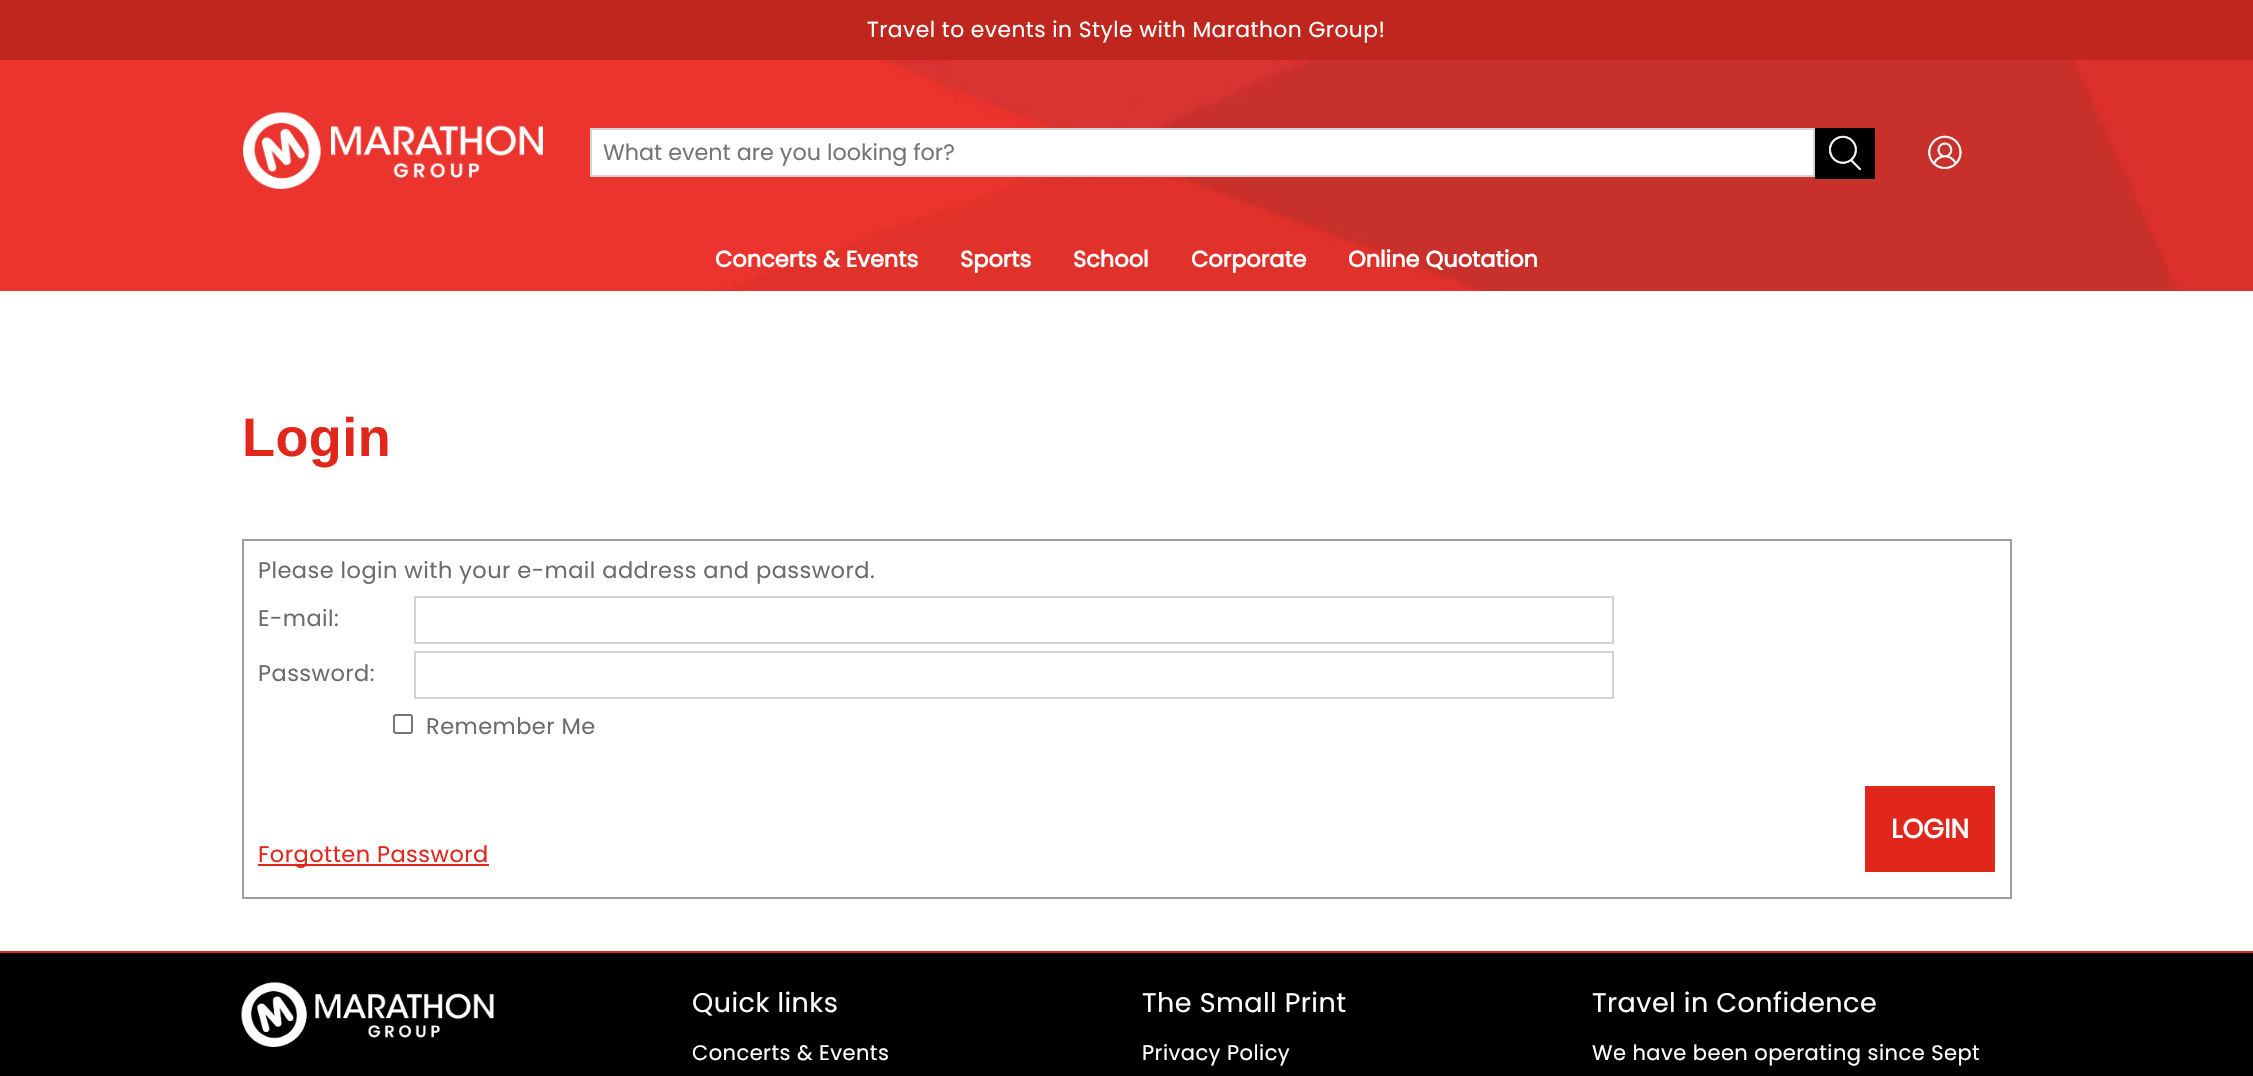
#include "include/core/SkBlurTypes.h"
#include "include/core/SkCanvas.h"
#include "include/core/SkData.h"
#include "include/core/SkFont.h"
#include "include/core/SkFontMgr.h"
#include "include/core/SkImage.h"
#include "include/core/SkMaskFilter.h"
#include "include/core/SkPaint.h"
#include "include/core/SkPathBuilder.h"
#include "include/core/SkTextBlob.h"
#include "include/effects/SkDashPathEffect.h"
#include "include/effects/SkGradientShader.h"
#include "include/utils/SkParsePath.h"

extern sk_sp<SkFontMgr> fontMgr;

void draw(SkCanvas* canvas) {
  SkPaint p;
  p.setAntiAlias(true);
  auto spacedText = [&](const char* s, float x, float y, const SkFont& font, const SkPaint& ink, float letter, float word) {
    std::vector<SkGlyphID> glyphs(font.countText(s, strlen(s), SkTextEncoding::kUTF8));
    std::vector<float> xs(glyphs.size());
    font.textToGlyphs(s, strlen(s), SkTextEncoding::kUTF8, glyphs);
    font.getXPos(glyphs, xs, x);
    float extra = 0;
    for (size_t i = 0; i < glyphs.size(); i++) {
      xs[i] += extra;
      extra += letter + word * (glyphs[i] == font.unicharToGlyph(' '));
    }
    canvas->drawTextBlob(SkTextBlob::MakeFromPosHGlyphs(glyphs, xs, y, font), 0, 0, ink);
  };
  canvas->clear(SK_ColorWHITE);
  p.setColor(SkColorSetRGB(191, 38, 29));
  canvas->drawRect(SkRect::MakeLTRB(0, 0, 2253, 60), p);
  canvas->drawImageRect(SkImages::DeferredFromEncodedData(SkData::MakeFromFileName("images/1.png")), SkRect::MakeLTRB(0, 60, 2253, 291), SkSamplingOptions());
  p.setColor(SK_ColorWHITE);
  canvas->drawRect(SkRect::MakeLTRB(591, 129, 1814, 176), p);
  p.setStyle(SkPaint::kStroke_Style);
  p.setStrokeWidth(2);
  p.setColor(SkColorSetRGB(211, 211, 211));
  canvas->drawRect(SkRect::MakeLTRB(591, 129, 1814, 176), p);
  p.setStyle(SkPaint::kFill_Style);
  p.setColor(SK_ColorBLACK);
  canvas->drawRect(SkRect::MakeLTRB(1815, 128, 1875, 179), p);
  canvas->drawImageRect(SkImages::DeferredFromEncodedData(SkData::MakeFromFileName("images/2.png")), SkRect::MakeLTRB(1828, 135, 1862, 171), SkSamplingOptions());
  canvas->drawImageRect(SkImages::DeferredFromEncodedData(SkData::MakeFromFileName("images/3.png")), SkRect::MakeLTRB(1928, 135, 1962, 170), SkSamplingOptions());
  canvas->drawImageRect(SkImages::DeferredFromEncodedData(SkData::MakeFromFileName("images/4.png")), SkRect::MakeLTRB(243, 112, 543, 189), SkSamplingOptions());
  p.setStyle(SkPaint::kStroke_Style);
  p.setColor(SkColorSetRGB(156, 158, 161));
  canvas->drawRect(SkRect::MakeLTRB(243, 540, 2011, 898), p);
  p.setColor(SkColorSetRGB(211, 211, 211));
  canvas->drawRect(SkRect::MakeLTRB(415, 597, 1613, 643), p);
  canvas->drawRect(SkRect::MakeLTRB(415, 652, 1613, 698), p);
  p.setColor(SkColorSetRGB(118, 118, 118));
  canvas->drawRoundRect(SkRect::MakeLTRB(394, 715, 412, 733), 2, 2, p);
  p.setStyle(SkPaint::kFill_Style);
  p.setColor(SkColorSetRGB(225, 38, 27));
  canvas->drawRect(SkRect::MakeLTRB(1865, 786, 1995, 872), p);
  canvas->drawRect(SkRect::MakeLTRB(258, 864, 489, 866), p);
  p.setColor(SK_ColorBLACK);
  canvas->drawRect(SkRect::MakeLTRB(0, 953, 2253, 1076), p);
  p.setColor(SkColorSetRGB(225, 38, 27));
  canvas->drawRect(SkRect::MakeLTRB(0, 951, 2253, 953), p);
  canvas->drawImageRect(SkImages::DeferredFromEncodedData(SkData::MakeFromFileName("images/5.png")), SkRect::MakeLTRB(241, 982, 494, 1047), SkSamplingOptions());
  SkFont font1(fontMgr->matchFamilyStyle("Poppins", SkFontStyle::Normal()), 21.8f);
  font1.setSubpixel(true);
  p.setColor(SK_ColorWHITE);
  spacedText("Travel to events in Style with Marathon Group!", 867, 37, font1, p, 0.45f, 0);
  SkFont font2(fontMgr->matchFamilyStyle("Poppins", SkFontStyle::Normal()), 22.3f);
  font2.setSubpixel(true);
  p.setColor(SkColorSetRGB(117, 117, 117));
  canvas->drawString("What event are you looking for?", 603, 160, font2, p);
  SkFont font3(fontMgr->matchFamilyStyle("Poppins", SkFontStyle::Bold()), 22.5f);
  font3.setSubpixel(true);
  p.setColor(SK_ColorWHITE);
  canvas->drawString("Concerts & Events", 715, 267, font3, p);
  canvas->drawString("Sports", 960, 267, font3, p);
  canvas->drawString("School", 1073, 267, font3, p);
  canvas->drawString("Corporate", 1191, 267, font3, p);
  canvas->drawString("Online Quotation", 1348, 267, font3, p);
  SkFont font4(fontMgr->matchFamilyStyle("Liberation Sans", SkFontStyle::Bold()), 54);
  font4.setSubpixel(true);
  p.setColor(SkColorSetRGB(225, 38, 27));
  spacedText("Login", 242, 456, font4, p, 0.45f, 0);
  SkFont font5(fontMgr->matchFamilyStyle("Poppins", SkFontStyle::Normal()), 22.5f);
  font5.setSubpixel(true);
  p.setColor(SkColorSetRGB(108, 108, 108));
  spacedText("Please login with your e-mail address and password.", 258, 578, font5, p, 0.45f, 0);
  spacedText("E-mail:", 258, 626, font5, p, 0.45f, 0);
  spacedText("Password:", 258, 681, font5, p, 0.45f, 0);
  spacedText("Remember Me", 426, 734, font5, p, 0.45f, 0);
  SkFont font6(fontMgr->matchFamilyStyle("Poppins", SkFontStyle::Bold()), 26.5f);
  font6.setSubpixel(true);
  p.setColor(SK_ColorWHITE);
  canvas->drawString("LOGIN", 1891, 838, font6, p);
  p.setColor(SkColorSetRGB(225, 38, 27));
  spacedText("Forgotten Password", 258, 862, font5, p, 0.45f, 0);
  SkFont font7(fontMgr->matchFamilyStyle("Poppins", SkFontStyle::Normal()), 27);
  font7.setSubpixel(true);
  p.setColor(SK_ColorWHITE);
  spacedText("Quick links", 692, 1012, font7, p, 0.45f, 0);
  SkFont font8(fontMgr->matchFamilyStyle("Poppins", SkFontStyle::Normal()), 21);
  font8.setSubpixel(true);
  spacedText("Concerts & Events", 692, 1060, font8, p, 0.45f, 0);
  spacedText("The Small Print", 1142, 1012, font7, p, 0.45f, 0);
  spacedText("Privacy Policy", 1142, 1060, font8, p, 0.45f, 0);
  spacedText("Travel in Confidence", 1592, 1012, font7, p, 0.45f, 0);
  spacedText("We have been operating since Sept", 1592, 1060, font8, p, 0.45f, 0);
}
